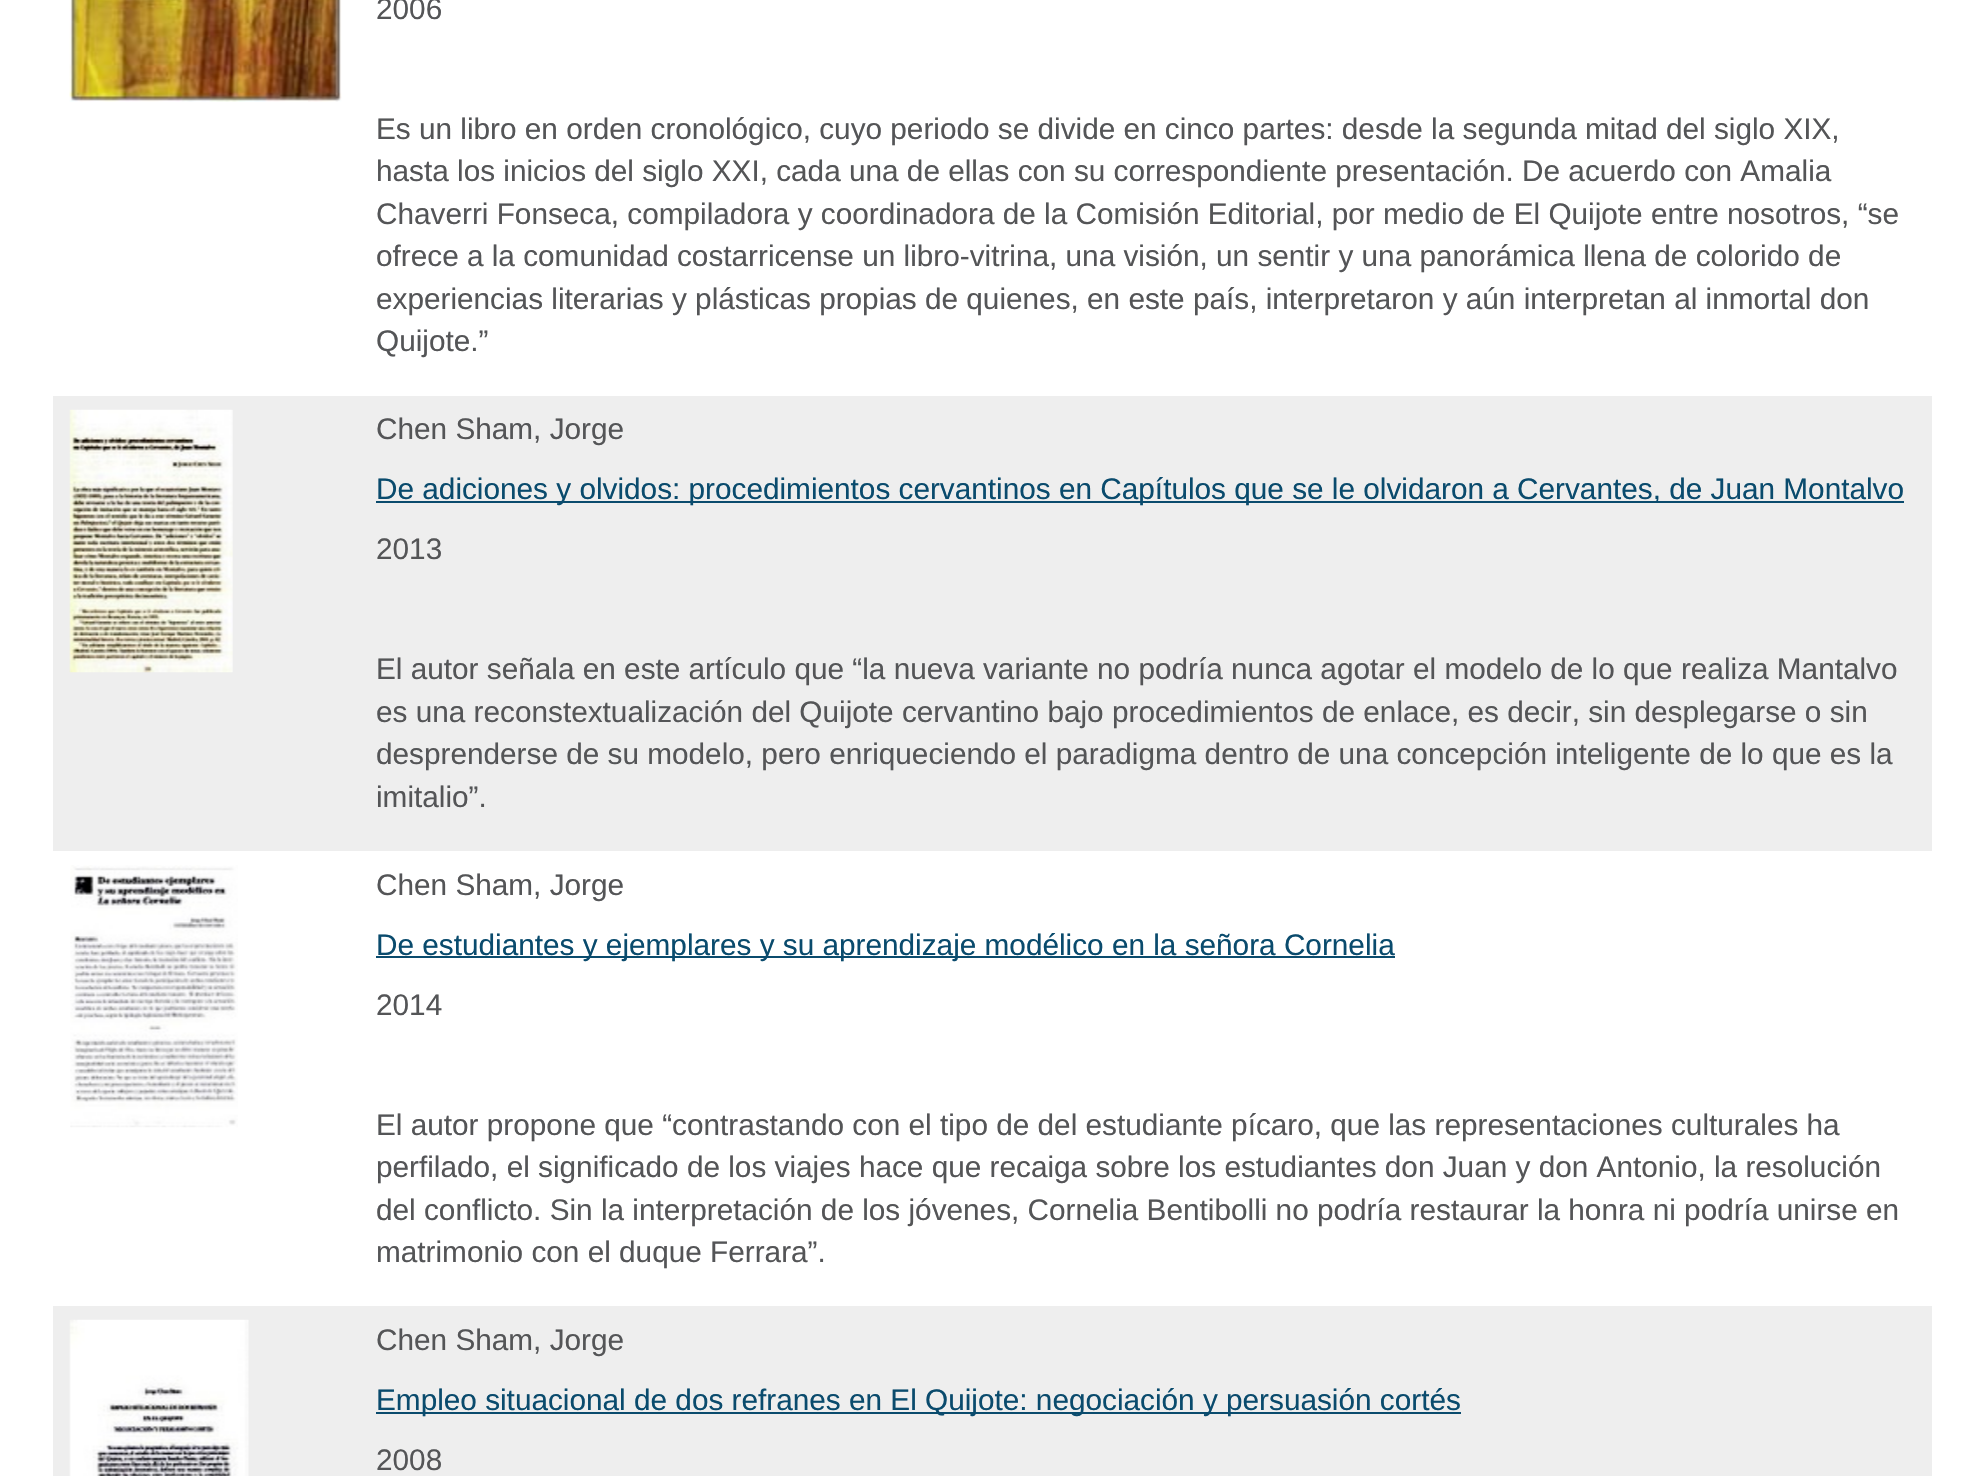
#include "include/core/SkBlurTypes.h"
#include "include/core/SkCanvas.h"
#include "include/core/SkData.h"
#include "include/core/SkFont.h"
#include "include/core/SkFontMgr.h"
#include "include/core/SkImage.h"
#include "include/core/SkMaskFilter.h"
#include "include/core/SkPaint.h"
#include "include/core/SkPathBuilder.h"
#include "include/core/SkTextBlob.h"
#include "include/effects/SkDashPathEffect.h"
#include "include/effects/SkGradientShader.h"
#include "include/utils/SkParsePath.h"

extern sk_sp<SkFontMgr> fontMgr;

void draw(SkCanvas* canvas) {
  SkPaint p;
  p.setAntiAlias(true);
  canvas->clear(SK_ColorWHITE);
  canvas->drawImageRect(SkImages::DeferredFromEncodedData(SkData::MakeFromFileName("images/1.png")), SkRect::MakeLTRB(69, 0, 342, 102), SkSamplingOptions());
  p.setColor(SkColorSetRGB(238, 238, 238));
  canvas->drawRect(SkRect::MakeLTRB(53, 396, 1932, 851), p);
  canvas->drawImageRect(SkImages::DeferredFromEncodedData(SkData::MakeFromFileName("images/2.png")), SkRect::MakeLTRB(69, 409, 233, 673), SkSamplingOptions());
  p.setColor(SkColorSetRGB(10, 75, 109));
  canvas->drawRect(SkRect::MakeLTRB(376, 501, 1904, 503), p);
  canvas->drawImageRect(SkImages::DeferredFromEncodedData(SkData::MakeFromFileName("images/3.png")), SkRect::MakeLTRB(70, 865, 238, 1128), SkSamplingOptions());
  canvas->drawRect(SkRect::MakeLTRB(376, 956, 1395, 958), p);
  p.setColor(SkColorSetRGB(238, 238, 238));
  canvas->drawRect(SkRect::MakeLTRB(53, 1306, 1932, 1476), p);
  canvas->drawImageRect(SkImages::DeferredFromEncodedData(SkData::MakeFromFileName("images/4.png")), SkRect::MakeLTRB(69, 1319, 249, 1476), SkSamplingOptions());
  p.setColor(SkColorSetRGB(10, 75, 109));
  canvas->drawRect(SkRect::MakeLTRB(376, 1412, 1461, 1414), p);
  SkFont font1(fontMgr->matchFamilyStyle("Liberation Sans", SkFontStyle::Normal()), 29.75f);
  font1.setSubpixel(true);
  p.setColor(SkColorSetRGB(84, 85, 87));
  canvas->drawString("2006", 376, 19, font1, p);
  canvas->drawString("Es un libro en orden cronológico, cuyo periodo se divide en cinco partes: desde la segunda mitad del siglo XIX,", 376, 139, font1, p);
  canvas->drawString("hasta los inicios del siglo XXI, cada una de ellas con su correspondiente presentación. De acuerdo con Amalia", 376, 181, font1, p);
  canvas->drawString("Chaverri Fonseca, compiladora y coordinadora de la Comisión Editorial, por medio de El Quijote entre nosotros, “se", 376, 224, font1, p);
  canvas->drawString("ofrece a la comunidad costarricense un libro-vitrina, una visión, un sentir y una panorámica llena de colorido de", 376, 266, font1, p);
  canvas->drawString("experiencias literarias y plásticas propias de quienes, en este país, interpretaron y aún interpretan al inmortal don", 376, 309, font1, p);
  canvas->drawString("Quijote.”", 376, 351, font1, p);
  canvas->drawString("Chen Sham, Jorge", 376, 439, font1, p);
  p.setColor(SkColorSetRGB(10, 75, 109));
  canvas->drawString("De adiciones y olvidos: procedimientos cervantinos en Capítulos que se le olvidaron a Cervantes, de Juan Montalvo", 376, 499, font1, p);
  p.setColor(SkColorSetRGB(84, 85, 87));
  canvas->drawString("2013", 376, 559, font1, p);
  canvas->drawString("El autor señala en este artículo que “la nueva variante no podría nunca agotar el modelo de lo que realiza Mantalvo", 376, 679, font1, p);
  canvas->drawString("es una reconstextualización del Quijote cervantino bajo procedimientos de enlace, es decir, sin desplegarse o sin", 376, 722, font1, p);
  canvas->drawString("desprenderse de su modelo, pero enriqueciendo el paradigma dentro de una concepción inteligente de lo que es la", 376, 764, font1, p);
  canvas->drawString("imitalio”.", 376, 807, font1, p);
  canvas->drawString("Chen Sham, Jorge", 376, 895, font1, p);
  p.setColor(SkColorSetRGB(10, 75, 109));
  canvas->drawString("De estudiantes y ejemplares y su aprendizaje modélico en la señora Cornelia", 376, 955, font1, p);
  p.setColor(SkColorSetRGB(84, 85, 87));
  canvas->drawString("2014", 376, 1015, font1, p);
  canvas->drawString("El autor propone que “contrastando con el tipo de del estudiante pícaro, que las representaciones culturales ha", 376, 1135, font1, p);
  canvas->drawString("perfilado, el significado de los viajes hace que recaiga sobre los estudiantes don Juan y don Antonio, la resolución", 376, 1177, font1, p);
  canvas->drawString("del conflicto. Sin la interpretación de los jóvenes, Cornelia Bentibolli no podría restaurar la honra ni podría unirse en", 376, 1220, font1, p);
  canvas->drawString("matrimonio con el duque Ferrara”.", 376, 1262, font1, p);
  canvas->drawString("Chen Sham, Jorge", 376, 1350, font1, p);
  p.setColor(SkColorSetRGB(10, 75, 109));
  canvas->drawString("Empleo situacional de dos refranes en El Quijote: negociación y persuasión cortés", 376, 1410, font1, p);
  p.setColor(SkColorSetRGB(84, 85, 87));
  canvas->drawString("2008", 376, 1470, font1, p);
}
